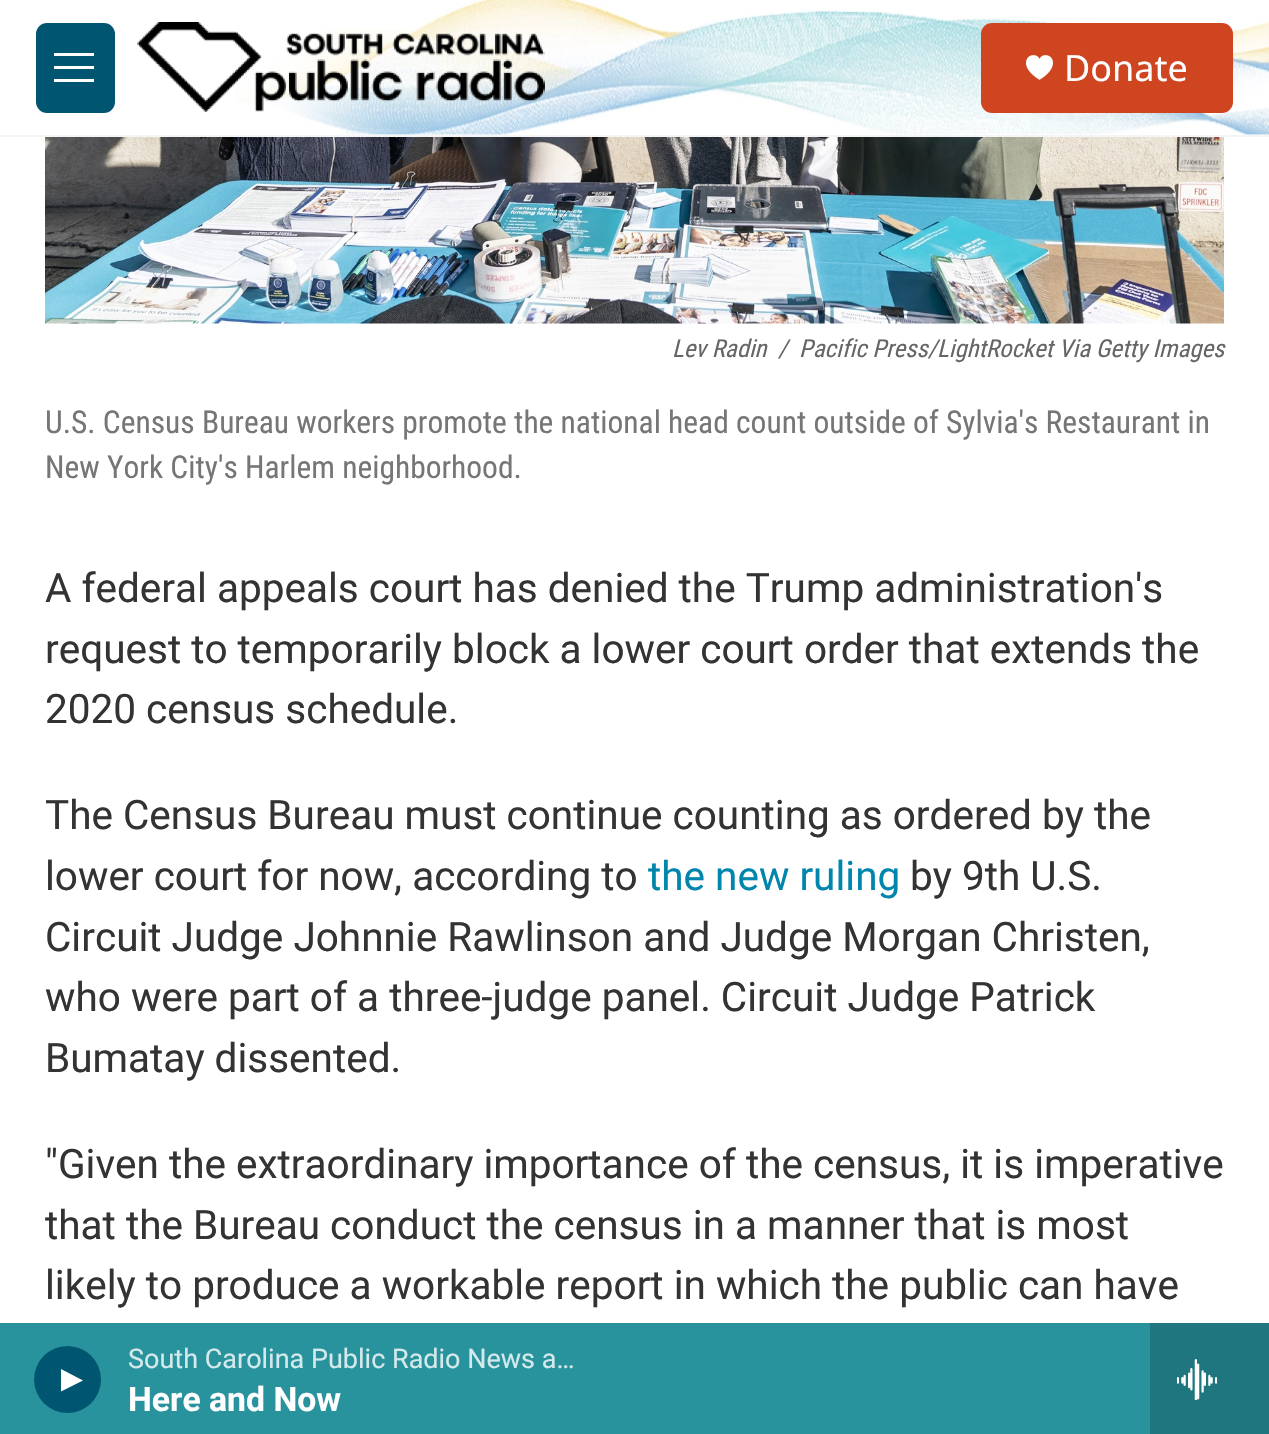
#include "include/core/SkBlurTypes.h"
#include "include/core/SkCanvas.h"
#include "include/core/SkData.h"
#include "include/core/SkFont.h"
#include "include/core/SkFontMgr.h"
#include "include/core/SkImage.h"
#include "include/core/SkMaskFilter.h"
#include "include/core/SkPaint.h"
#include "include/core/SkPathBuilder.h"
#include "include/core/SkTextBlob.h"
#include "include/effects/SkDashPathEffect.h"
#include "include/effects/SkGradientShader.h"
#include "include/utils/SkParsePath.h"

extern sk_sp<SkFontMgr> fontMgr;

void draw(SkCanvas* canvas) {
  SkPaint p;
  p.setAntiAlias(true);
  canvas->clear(SK_ColorWHITE);
  p.setColor(SkColorSetRGB(245, 245, 245));
  canvas->drawRect(SkRect::MakeLTRB(0, 135, 1269, 137), p);
  canvas->drawImageRect(SkImages::DeferredFromEncodedData(SkData::MakeFromFileName("images/1.png")), SkRect::MakeLTRB(234, 0, 1269, 135), SkSamplingOptions());
  p.setColor(SkColorSetRGB(0, 86, 112));
  canvas->drawRoundRect(SkRect::MakeLTRB(36, 23, 115, 113), 11, 11, p);
  p.setColor(SK_ColorWHITE);
  canvas->drawPath(SkPathBuilder(SkPathFillType::kEvenOdd).moveTo(54, 69).lineTo(54, 66).lineTo(94, 66).lineTo(94, 69).close().moveTo(54, 56).lineTo(54, 53).lineTo(94, 53).lineTo(94, 56).close().moveTo(54, 82).lineTo(54, 79).lineTo(94, 79).lineTo(94, 82).close().detach(), p);
  canvas->drawImageRect(SkImages::DeferredFromEncodedData(SkData::MakeFromFileName("images/2.png")), SkRect::MakeLTRB(137, 22, 545, 112), SkSamplingOptions());
  p.setColor(SkColorSetRGB(207, 69, 32));
  canvas->drawRoundRect(SkRect::MakeLTRB(981, 23, 1233, 113), 11, 11, p);
  canvas->drawImageRect(SkImages::DeferredFromEncodedData(SkData::MakeFromFileName("images/3.png")), SkRect::MakeLTRB(1026, 55, 1053, 80), SkSamplingOptions());
  p.setColor(SkColorSetRGB(40, 147, 157));
  canvas->drawRect(SkRect::MakeLTRB(0, 1323, 1150, 1434), p);
  p.setColor(SkColorSetRGB(0, 86, 112));
  canvas->drawCircle(67.5f, 1379.5f, 33.5f, p);
  p.setColor(SK_ColorWHITE);
  canvas->drawPath(SkPathBuilder().moveTo(61, 1369).lineTo(83, 1380.5f).lineTo(61, 1391.5f).close().detach(), p);
  p.setColor(SkColorSetRGB(32, 118, 126));
  canvas->drawRect(SkRect::MakeLTRB(1150, 1323, 1269, 1434), p);
  canvas->drawImageRect(SkImages::DeferredFromEncodedData(SkData::MakeFromFileName("images/4.png")), SkRect::MakeLTRB(1177, 1359, 1217, 1400), SkSamplingOptions());
  canvas->drawImageRect(SkImages::DeferredFromEncodedData(SkData::MakeFromFileName("images/5.png")), SkRect::MakeLTRB(45, 137, 1224, 324), SkSamplingOptions());
  SkFont font1(fontMgr->matchFamilyStyle("Noto Sans", SkFontStyle::Normal()), 36);
  font1.setSubpixel(true);
  p.setColor(SK_ColorWHITE);
  canvas->drawString("Donate", 1064, 81, font1, p);
  SkFont font2(fontMgr->matchFamilyStyle("Roboto", SkFontStyle::Normal()), 27);
  font2.setSubpixel(true);
  p.setColor(SkColorSetRGB(212, 233, 235));
  canvas->drawString("South Carolina Public Radio News a…", 128, 1368, font2, p);
  SkFont font3(fontMgr->matchFamilyStyle("Roboto", SkFontStyle::Bold()), 33.75f);
  font3.setSubpixel(true);
  p.setColor(SK_ColorWHITE);
  canvas->drawString("Here and Now", 128, 1411, font3, p);
  SkFont font4(fontMgr->matchFamilyStyle("Roboto Condensed", SkFontStyle::Italic()), 24.75f);
  font4.setSubpixel(true);
  p.setColor(SkColorSetRGB(102, 102, 102));
  canvas->drawString("Lev Radin", 672, 357, font4, p);
  canvas->drawString("/", 778, 357, font4, p);
  canvas->drawString("Pacific Press/LightRocket Via Getty Images", 799, 357, font4, p);
  SkFont font5(fontMgr->matchFamilyStyle("Roboto Condensed", SkFontStyle::Normal()), 31.5f);
  font5.setSubpixel(true);
  p.setColor(SkColorSetRGB(118, 118, 118));
  canvas->drawString("U.S. Census Bureau workers promote the national head count outside of Sylvia's Restaurant in", 45, 433, font5, p);
  canvas->drawString("New York City's Harlem neighborhood.", 45, 478, font5, p);
  SkFont font6(fontMgr->matchFamilyStyle("Roboto", SkFontStyle::Normal()), 40.5f);
  font6.setSubpixel(true);
  p.setColor(SkColorSetRGB(51, 51, 51));
  canvas->drawString("A federal appeals court has denied the Trump administration's", 45, 602, font6, p);
  canvas->drawString("request to temporarily block a lower court order that extends the", 45, 663, font6, p);
  canvas->drawString("2020 census schedule.", 45, 723, font6, p);
  canvas->drawString("The Census Bureau must continue counting as ordered by the", 45, 829, font6, p);
  canvas->drawString("lower court for now, according to", 45, 890, font6, p);
  p.setColor(SkColorSetRGB(0, 133, 173));
  canvas->drawString("the new ruling", 648, 890, font6, p);
  p.setColor(SkColorSetRGB(51, 51, 51));
  canvas->drawString("by 9th U.S.", 910, 890, font6, p);
  canvas->drawString("Circuit Judge Johnnie Rawlinson and Judge Morgan Christen,", 45, 951, font6, p);
  canvas->drawString("who were part of a three-judge panel. Circuit Judge Patrick", 45, 1011, font6, p);
  canvas->drawString("Bumatay dissented.", 45, 1072, font6, p);
  canvas->drawString("\"Given the extraordinary importance of the census, it is imperative", 45, 1178, font6, p);
  canvas->drawString("that the Bureau conduct the census in a manner that is most", 45, 1239, font6, p);
  canvas->drawString("likely to produce a workable report in which the public can have", 45, 1299, font6, p);
}
